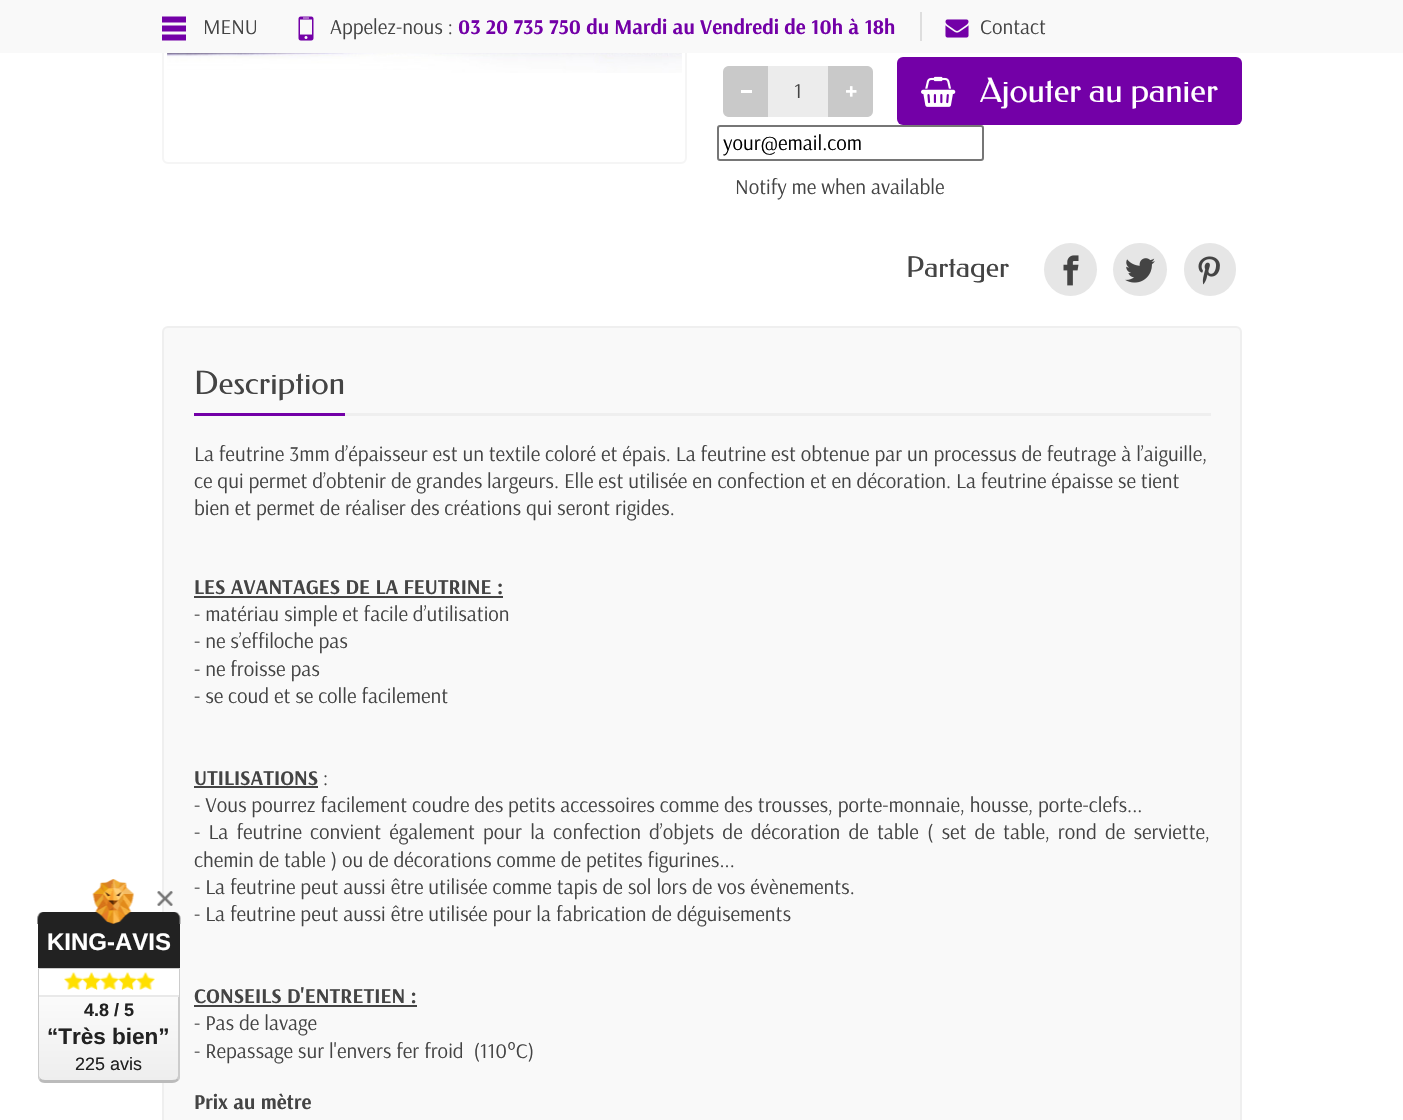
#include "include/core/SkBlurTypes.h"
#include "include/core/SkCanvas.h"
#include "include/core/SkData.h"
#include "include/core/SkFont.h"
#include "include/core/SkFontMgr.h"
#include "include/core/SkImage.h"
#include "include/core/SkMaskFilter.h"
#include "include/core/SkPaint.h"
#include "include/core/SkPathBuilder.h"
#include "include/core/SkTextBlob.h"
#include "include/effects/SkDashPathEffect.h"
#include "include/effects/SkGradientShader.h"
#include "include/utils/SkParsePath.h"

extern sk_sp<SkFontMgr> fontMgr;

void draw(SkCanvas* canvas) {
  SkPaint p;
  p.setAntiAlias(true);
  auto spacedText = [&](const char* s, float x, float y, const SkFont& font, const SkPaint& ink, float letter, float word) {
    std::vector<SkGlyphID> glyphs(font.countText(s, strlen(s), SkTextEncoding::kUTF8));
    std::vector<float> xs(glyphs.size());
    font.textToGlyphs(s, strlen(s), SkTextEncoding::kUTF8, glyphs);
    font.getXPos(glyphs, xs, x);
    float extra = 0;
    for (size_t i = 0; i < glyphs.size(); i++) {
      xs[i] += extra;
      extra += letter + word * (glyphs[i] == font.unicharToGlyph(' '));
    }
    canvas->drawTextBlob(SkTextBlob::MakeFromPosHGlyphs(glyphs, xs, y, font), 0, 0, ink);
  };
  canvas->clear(SK_ColorWHITE);
  p.setStyle(SkPaint::kStroke_Style);
  p.setStrokeWidth(2);
  p.setColor(SkColorSetRGB(245, 245, 245));
  canvas->drawRoundRect(SkRect::MakeLTRB(163, -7, 686, 163), 5, 5, p);
  p.setStyle(SkPaint::kFill_Style);
  p.setColor(SkColorSetRGB(249, 249, 249));
  canvas->drawRect(SkRect::MakeLTRB(0, 0, 1403, 53), p);
  canvas->drawImageRect(SkImages::DeferredFromEncodedData(SkData::MakeFromFileName("images/1.png")), SkRect::MakeLTRB(162, 16, 186, 41), SkSamplingOptions());
  p.setColor(SkColorSetRGB(222, 222, 222));
  canvas->drawRect(SkRect::MakeLTRB(920, 12, 922, 41), p);
  canvas->drawImageRect(SkImages::DeferredFromEncodedData(SkData::MakeFromFileName("images/2.png")), SkRect::MakeLTRB(298, 16, 314, 41), SkSamplingOptions());
  canvas->drawImageRect(SkImages::DeferredFromEncodedData(SkData::MakeFromFileName("images/3.png")), SkRect::MakeLTRB(945, 19, 969, 38), SkSamplingOptions());
  p.setColor(SkColorSetRGB(249, 249, 249));
  canvas->drawRoundRect(SkRect::MakeLTRB(163, 327, 1241, 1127), 5, 5, p);
  p.setStyle(SkPaint::kStroke_Style);
  p.setColor(SkColorSetRGB(239, 239, 239));
  canvas->drawRoundRect(SkRect::MakeLTRB(163, 327, 1241, 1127), 5, 5, p);
  canvas->drawImageRect(SkImages::DeferredFromEncodedData(SkData::MakeFromFileName("images/4.png")), SkRect::MakeLTRB(37, 879, 181, 924), SkSamplingOptions());
  p.setStyle(SkPaint::kFill_Style);
  p.setColor(SkColorSetRGB(34, 34, 34));
  canvas->drawRect(SkRect::MakeLTRB(38, 924, 180, 968), p);
  {
    const SkColor colors[] = {SK_ColorWHITE, SkColorSetRGB(238, 238, 238)};
    const float stops[] = {0, 1};
    const SkPoint ends[] = {{109, 969}, {109, 1080}};
    p.setShader(SkGradientShader::MakeLinear(ends, colors, stops, 2, SkTileMode::kClamp));
    p.setAlpha(255);
  }
  canvas->drawPath(SkPathBuilder().moveTo(39, 969).lineTo(178, 969).lineTo(178, 1076).cubicTo(178, 1078, 176, 1080, 172, 1080).lineTo(45, 1080).cubicTo(42, 1080, 39, 1078, 39, 1076).close().detach(), p);
  p.setShader(nullptr);
  p.setColor(SkColorSetRGB(204, 204, 204));
  canvas->drawPath(SkPathBuilder().moveTo(38, 968).lineTo(39, 969).lineTo(178, 969).lineTo(178, 970).lineTo(180, 968).close().detach(), p);
  canvas->drawPath(SkPathBuilder().moveTo(180, 1076).lineTo(180, 968).lineTo(178, 970).lineTo(178, 1076).lineTo(177, 1078).lineTo(179, 1080).cubicTo(180, 1079, 180, 1078, 180, 1076).close().detach(), p);
  p.setColor(SkColorSetRGB(187, 187, 187));
  canvas->drawPath(SkPathBuilder().moveTo(45, 1083).lineTo(172, 1083).cubicTo(175, 1083, 177, 1082, 179, 1080).lineTo(177, 1078).cubicTo(177, 1079, 175, 1080, 172, 1080).lineTo(45, 1080).cubicTo(43, 1080, 41, 1079, 40, 1078).lineTo(39, 1080).cubicTo(40, 1082, 42, 1083, 45, 1083).close().detach(), p);
  p.setColor(SkColorSetRGB(204, 204, 204));
  canvas->drawPath(SkPathBuilder().moveTo(39, 969).lineTo(38, 968).lineTo(38, 1076).cubicTo(38, 1077, 38, 1079, 39, 1080).lineTo(40, 1078).lineTo(39, 1076).close().detach(), p);
  canvas->drawImageRect(SkImages::DeferredFromEncodedData(SkData::MakeFromFileName("images/5.png")), SkRect::MakeLTRB(157, 891, 173, 906), SkSamplingOptions());
  p.setColor(SK_ColorWHITE);
  canvas->drawRect(SkRect::MakeLTRB(39, 969, 179, 995), p);
  p.setColor(SkColorSetRGB(233, 233, 233));
  canvas->drawRect(SkRect::MakeLTRB(39, 995, 179, 997), p);
  canvas->drawImageRect(SkImages::DeferredFromEncodedData(SkData::MakeFromFileName("images/6.png")), SkRect::MakeLTRB(64, 972, 83, 990), SkSamplingOptions());
  canvas->drawImageRect(SkImages::DeferredFromEncodedData(SkData::MakeFromFileName("images/7.png")), SkRect::MakeLTRB(82, 972, 101, 990), SkSamplingOptions());
  canvas->drawImageRect(SkImages::DeferredFromEncodedData(SkData::MakeFromFileName("images/8.png")), SkRect::MakeLTRB(100, 972, 119, 990), SkSamplingOptions());
  canvas->drawImageRect(SkImages::DeferredFromEncodedData(SkData::MakeFromFileName("images/7.png")), SkRect::MakeLTRB(118, 972, 137, 990), SkSamplingOptions());
  canvas->drawImageRect(SkImages::DeferredFromEncodedData(SkData::MakeFromFileName("images/9.png")), SkRect::MakeLTRB(136, 972, 155, 990), SkSamplingOptions());
  canvas->drawImageRect(SkImages::DeferredFromEncodedData(SkData::MakeFromFileName("images/10.png")), SkRect::MakeLTRB(167, 53, 682, 73), SkSamplingOptions());
  p.setColor(SkColorSetRGB(236, 236, 236));
  canvas->drawRoundRect(SkRect::MakeLTRB(723, 66, 873, 117), 6, 6, p);
  p.setColor(SkColorSetARGB(38, 0, 0, 0));
  canvas->drawPath(SkPathBuilder().moveTo(729, 66).lineTo(768, 66).lineTo(768, 117).lineTo(729, 117).cubicTo(725.5f, 117, 723, 114.5f, 723, 111).lineTo(723, 72).cubicTo(723, 68.5f, 725.5f, 66, 729, 66).close().detach(), p);
  p.setColor(SK_ColorWHITE);
  canvas->drawRect(SkRect::MakeLTRB(741, 90, 752, 93), p);
  p.setColor(SkColorSetARGB(38, 0, 0, 0));
  canvas->drawPath(SkPathBuilder().moveTo(828, 66).lineTo(867, 66).cubicTo(870.5f, 66, 873, 68.5f, 873, 72).lineTo(873, 111).cubicTo(873, 114.5f, 870.5f, 117, 867, 117).lineTo(828, 117).close().detach(), p);
  canvas->drawImageRect(SkImages::DeferredFromEncodedData(SkData::MakeFromFileName("images/11.png")), SkRect::MakeLTRB(846, 86, 857, 97), SkSamplingOptions());
  p.setColor(SkColorSetRGB(115, 0, 167));
  canvas->drawRoundRect(SkRect::MakeLTRB(897, 57, 1242, 125), 6, 6, p);
  canvas->drawImageRect(SkImages::DeferredFromEncodedData(SkData::MakeFromFileName("images/12.png")), SkRect::MakeLTRB(921, 76, 956, 107), SkSamplingOptions());
  p.setStyle(SkPaint::kStroke_Style);
  p.setColor(SkColorSetRGB(118, 118, 118));
  canvas->drawRoundRect(SkRect::MakeLTRB(718, 126, 983, 160), 2, 2, p);
  p.setStyle(SkPaint::kFill_Style);
  p.setColor(SkColorSetRGB(230, 230, 230));
  canvas->drawCircle(1070.5f, 269.5f, 26.5f, p);
  canvas->drawImageRect(SkImages::DeferredFromEncodedData(SkData::MakeFromFileName("images/13.png")), SkRect::MakeLTRB(1063, 255, 1079, 286), SkSamplingOptions());
  canvas->drawRoundRect(SkRect::MakeLTRB(1113, 243, 1167, 296), 26.5f, 26.5f, p);
  canvas->drawImageRect(SkImages::DeferredFromEncodedData(SkData::MakeFromFileName("images/14.png")), SkRect::MakeLTRB(1125, 258, 1155, 283), SkSamplingOptions());
  canvas->drawRoundRect(SkRect::MakeLTRB(1184, 243, 1236, 296), 26, 26, p);
  canvas->drawImageRect(SkImages::DeferredFromEncodedData(SkData::MakeFromFileName("images/15.png")), SkRect::MakeLTRB(1198, 256, 1220, 285), SkSamplingOptions());
  p.setColor(SkColorSetRGB(239, 239, 239));
  canvas->drawRect(SkRect::MakeLTRB(345, 413, 1211, 416), p);
  p.setColor(SkColorSetRGB(115, 0, 167));
  canvas->drawRect(SkRect::MakeLTRB(194, 413, 345, 416), p);
  p.setColor(SkColorSetRGB(68, 68, 68));
  canvas->drawRect(SkRect::MakeLTRB(194, 596, 503, 598), p);
  canvas->drawRect(SkRect::MakeLTRB(194, 786, 318, 788), p);
  canvas->drawRect(SkRect::MakeLTRB(194, 1005, 417, 1007), p);
  SkFont font1(fontMgr->matchFamilyStyle("Arsenal", SkFontStyle::Normal()), 21);
  font1.setSubpixel(true);
  canvas->drawString("MENU", 203, 34, font1, p);
  canvas->drawString("Appelez-nous :", 330, 34, font1, p);
  SkFont font2(fontMgr->matchFamilyStyle("Arsenal", SkFontStyle::Bold()), 21);
  font2.setSubpixel(true);
  p.setColor(SkColorSetRGB(115, 0, 167));
  canvas->drawString("03 20 735 750 du Mardi au Vendredi de 10h à 18h", 458, 34, font2, p);
  p.setColor(SkColorSetRGB(68, 68, 68));
  canvas->drawString("Contact", 980, 34, font1, p);
  SkFont font3(fontMgr->matchFamilyStyle("Liberation Sans", SkFontStyle::Bold()), 24);
  font3.setSubpixel(true);
  p.setColor(SK_ColorWHITE);
  canvas->drawString("KING-AVIS", 47, 950, font3, p);
  SkFont font4(fontMgr->matchFamilyStyle("Liberation Sans", SkFontStyle::Bold()), 18);
  font4.setSubpixel(true);
  p.setColor(SkColorSetRGB(34, 34, 34));
  canvas->drawString("4.8 / 5", 84, 1016, font4, p);
  SkFont font5(fontMgr->matchFamilyStyle("Liberation Sans", SkFontStyle::Bold()), 22.5f);
  font5.setSubpixel(true);
  canvas->drawString("“Très bien”", 47, 1044, font5, p);
  SkFont font6(fontMgr->matchFamilyStyle("Liberation Sans", SkFontStyle::Normal()), 18);
  font6.setSubpixel(true);
  canvas->drawString("225 avis", 75, 1070, font6, p);
  p.setColor(SkColorSetRGB(68, 68, 68));
  canvas->drawString("1", 794, 98, font1, p);
  SkFont font7(fontMgr->matchFamilyStyle("Federo", SkFontStyle::Normal()), 33.5f);
  font7.setSubpixel(true);
  p.setColor(SK_ColorWHITE);
  canvas->drawString("Ajouter au panier", 980, 102, font7, p);
  p.setColor(SK_ColorBLACK);
  canvas->drawString("your@email.com", 723, 150, font1, p);
  p.setColor(SkColorSetRGB(68, 68, 68));
  canvas->drawString("Notify me when available", 735, 194, font1, p);
  SkFont font8(fontMgr->matchFamilyStyle("Federo", SkFontStyle::Normal()), 28.5f);
  font8.setSubpixel(true);
  canvas->drawString("Partager", 906, 277, font8, p);
  SkFont font9(fontMgr->matchFamilyStyle("Federo", SkFontStyle::Normal()), 32);
  font9.setSubpixel(true);
  canvas->drawString("Description", 194, 394, font9, p);
  canvas->drawString("La feutrine 3mm d’épaisseur est un textile coloré et épais. La feutrine est obtenue par un processus de feutrage à l’aiguille,", 194, 461, font1, p);
  canvas->drawString("ce qui permet d’obtenir de grandes largeurs. Elle est utilisée en confection et en décoration. La feutrine épaisse se tient", 194, 488, font1, p);
  canvas->drawString("bien et permet de réaliser des créations qui seront rigides.", 194, 515, font1, p);
  canvas->drawString("LES AVANTAGES DE LA FEUTRINE :", 194, 594, font2, p);
  canvas->drawString("- matériau simple et facile d’utilisation", 194, 621, font1, p);
  canvas->drawString("- ne s’effiloche pas", 194, 648, font1, p);
  canvas->drawString("- ne froisse pas", 194, 676, font1, p);
  canvas->drawString("- se coud et se colle facilement", 194, 703, font1, p);
  canvas->drawString("UTILISATIONS", 194, 785, font2, p);
  canvas->drawString(":", 323, 785, font1, p);
  canvas->drawString("- Vous pourrez facilement coudre des petits accessoires comme des trousses, porte-monnaie, housse, porte-clefs...", 194, 812, font1, p);
  spacedText("- La feutrine convient également pour la confection d’objets de décoration de table ( set de table, rond de serviette,", 194, 839, font1, p, 0, 3.25f);
  canvas->drawString("chemin de table ) ou de décorations comme de petites figurines...", 194, 867, font1, p);
  canvas->drawString("- La feutrine peut aussi être utilisée comme tapis de sol lors de vos évènements.", 194, 894, font1, p);
  canvas->drawString("- La feutrine peut aussi être utilisée pour la fabrication de déguisements", 194, 921, font1, p);
  canvas->drawString("CONSEILS D'ENTRETIEN :", 194, 1003, font2, p);
  canvas->drawString("- Pas de lavage", 194, 1030, font1, p);
  canvas->drawString("- Repassage sur l'envers fer froid  (110°C)", 194, 1058, font1, p);
  canvas->drawString("Prix au mètre", 194, 1109, font2, p);
}
